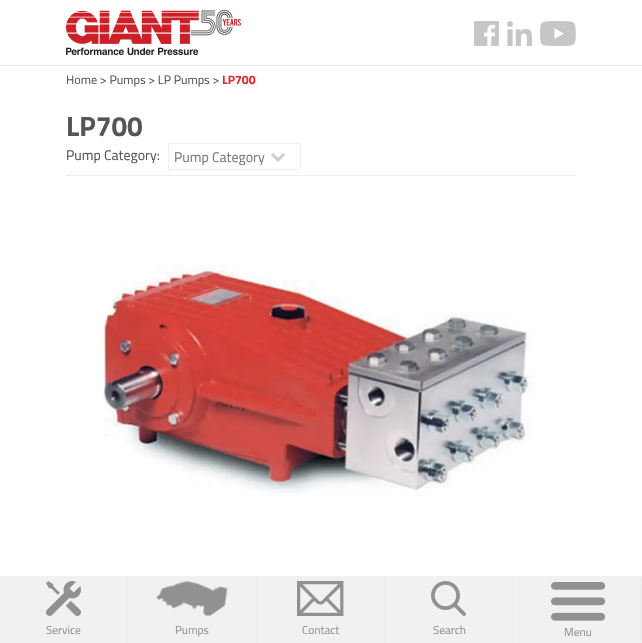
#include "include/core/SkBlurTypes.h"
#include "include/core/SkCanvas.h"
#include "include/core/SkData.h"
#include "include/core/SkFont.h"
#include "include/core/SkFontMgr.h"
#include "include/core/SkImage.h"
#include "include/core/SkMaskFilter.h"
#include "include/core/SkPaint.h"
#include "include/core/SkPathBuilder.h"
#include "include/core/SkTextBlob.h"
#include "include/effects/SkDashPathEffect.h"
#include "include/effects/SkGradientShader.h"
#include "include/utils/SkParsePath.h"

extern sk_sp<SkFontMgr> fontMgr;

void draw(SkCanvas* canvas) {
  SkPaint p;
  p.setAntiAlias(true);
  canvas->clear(SK_ColorWHITE);
  p.setColor(SkColorSetRGB(235, 235, 235));
  canvas->drawRect(SkRect::MakeLTRB(0, 65, 642, 66), p);
  canvas->drawImageRect(SkImages::DeferredFromEncodedData(SkData::MakeFromFileName("images/1.png")), SkRect::MakeLTRB(66, 10, 241, 55), SkSamplingOptions());
  canvas->drawImageRect(SkImages::DeferredFromEncodedData(SkData::MakeFromFileName("images/2.png")), SkRect::MakeLTRB(474, 21, 499, 46), SkSamplingOptions());
  canvas->drawImageRect(SkImages::DeferredFromEncodedData(SkData::MakeFromFileName("images/3.png")), SkRect::MakeLTRB(507, 21, 532, 46), SkSamplingOptions());
  canvas->drawImageRect(SkImages::DeferredFromEncodedData(SkData::MakeFromFileName("images/4.png")), SkRect::MakeLTRB(540, 21, 576, 46), SkSamplingOptions());
  p.setColor(SkColorSetRGB(238, 238, 238));
  canvas->drawRect(SkRect::MakeLTRB(66, 175, 576, 176), p);
  p.setStyle(SkPaint::kStroke_Style);
  p.setStrokeWidth(1);
  p.setColor(SkColorSetRGB(239, 239, 239));
  canvas->drawRect(SkRect::MakeLTRB(168.5f, 143.5f, 300.5f, 169.5f), p);
  p.setStrokeWidth(3);
  p.setColor(SkColorSetRGB(206, 206, 206));
  canvas->drawPath(SkPathBuilder().moveTo(272, 154).lineTo(278, 160).lineTo(284, 154).detach(), p);
  canvas->drawImageRect(SkImages::DeferredFromEncodedData(SkData::MakeFromFileName("images/5.png")), SkRect::MakeLTRB(102, 264, 536, 496), SkSamplingOptions());
  p.setStyle(SkPaint::kFill_Style);
  p.setColor(SkColorSetRGB(241, 241, 241));
  canvas->drawRect(SkRect::MakeLTRB(0, 576, 642, 643), p);
  p.setColor(SkColorSetRGB(235, 235, 235));
  canvas->drawRect(SkRect::MakeLTRB(127, 576, 128, 643), p);
  canvas->drawImageRect(SkImages::DeferredFromEncodedData(SkData::MakeFromFileName("images/6.png")), SkRect::MakeLTRB(46, 581, 81, 616), SkSamplingOptions());
  canvas->drawRect(SkRect::MakeLTRB(256, 576, 257, 643), p);
  canvas->drawImageRect(SkImages::DeferredFromEncodedData(SkData::MakeFromFileName("images/7.png")), SkRect::MakeLTRB(156, 581, 228, 616), SkSamplingOptions());
  canvas->drawRect(SkRect::MakeLTRB(384, 576, 385, 643), p);
  canvas->drawImageRect(SkImages::DeferredFromEncodedData(SkData::MakeFromFileName("images/8.png")), SkRect::MakeLTRB(297, 581, 344, 616), SkSamplingOptions());
  canvas->drawRect(SkRect::MakeLTRB(513, 576, 514, 643), p);
  canvas->drawImageRect(SkImages::DeferredFromEncodedData(SkData::MakeFromFileName("images/9.png")), SkRect::MakeLTRB(431, 581, 466, 616), SkSamplingOptions());
  p.setStyle(SkPaint::kStroke_Style);
  p.setStrokeWidth(1);
  canvas->drawPath(SkPathBuilder().moveTo(640.5f, 577.5f).lineTo(641.5f, 579.5f).lineTo(641.5f, 639.5f).lineTo(640.5f, 641.5f).detach(), p);
  canvas->drawImageRect(SkImages::DeferredFromEncodedData(SkData::MakeFromFileName("images/10.png")), SkRect::MakeLTRB(551, 582, 605, 621), SkSamplingOptions());
  SkFont font1(fontMgr->matchFamilyStyle("Titillium Web", SkFontStyle::Normal()), 12.25f);
  font1.setSubpixel(true);
  p.setStyle(SkPaint::kFill_Style);
  p.setColor(SkColorSetRGB(85, 85, 85));
  canvas->drawString("Home > Pumps > LP Pumps >", 66, 84, font1, p);
  SkFont font2(fontMgr->matchFamilyStyle("Titillium Web", SkFontStyle::Bold()), 12.25f);
  font2.setSubpixel(true);
  p.setColor(SkColorSetRGB(232, 38, 45));
  canvas->drawString("LP700", 222, 84, font2, p);
  SkFont font3(fontMgr->matchFamilyStyle("Titillium Web", SkFontStyle::Bold()), 28);
  font3.setSubpixel(true);
  p.setColor(SkColorSetRGB(85, 85, 85));
  canvas->drawString("LP700", 66, 136, font3, p);
  SkFont font4(fontMgr->matchFamilyStyle("Titillium Web", SkFontStyle::Normal()), 14);
  font4.setSubpixel(true);
  canvas->drawString("Pump Category:", 66, 160, font4, p);
  p.setColor(SkColorSetRGB(119, 119, 119));
  canvas->drawString("Pump Category", 174, 162, font4, p);
  SkFont font5(fontMgr->matchFamilyStyle("Titillium Web", SkFontStyle::Normal()), 11.5f);
  font5.setSubpixel(true);
  p.setColor(SkColorSetRGB(145, 145, 145));
  canvas->drawString("Service", 46, 634, font5, p);
  canvas->drawString("Pumps", 175, 634, font5, p);
  canvas->drawString("Contact", 302, 634, font5, p);
  canvas->drawString("Search", 433, 634, font5, p);
  canvas->drawString("Menu", 564, 636, font5, p);
}
